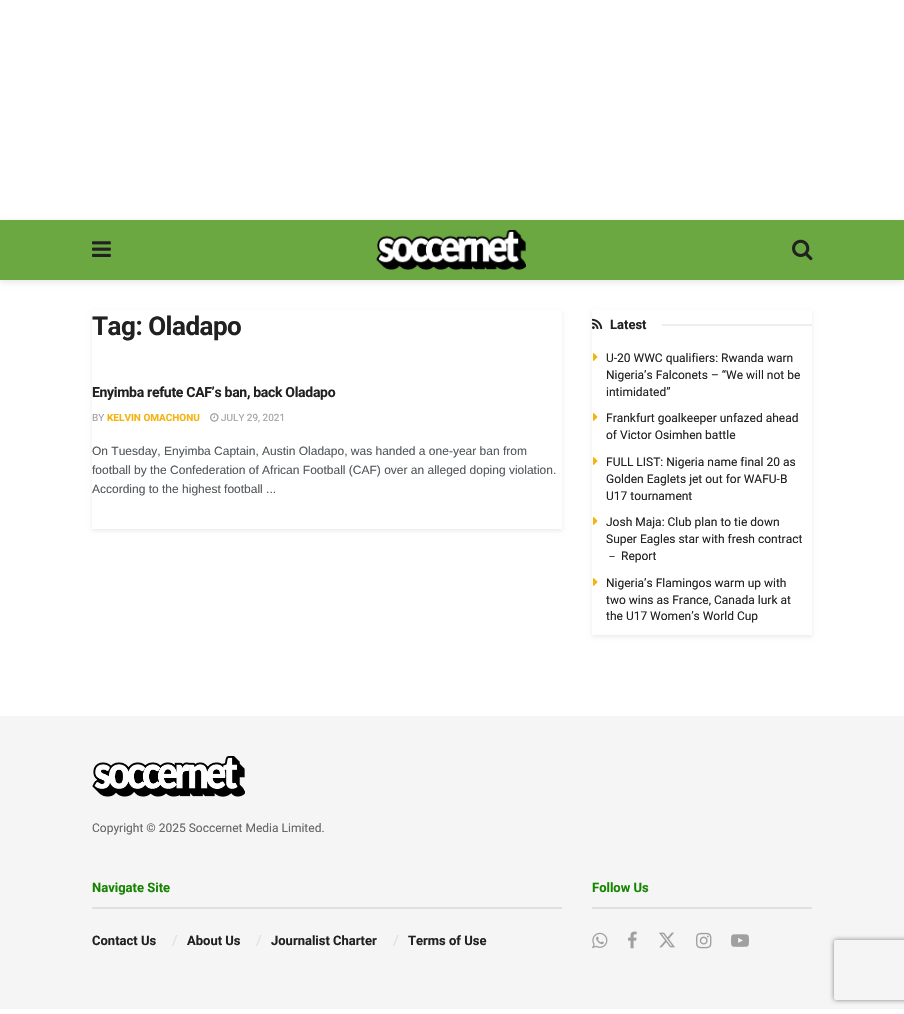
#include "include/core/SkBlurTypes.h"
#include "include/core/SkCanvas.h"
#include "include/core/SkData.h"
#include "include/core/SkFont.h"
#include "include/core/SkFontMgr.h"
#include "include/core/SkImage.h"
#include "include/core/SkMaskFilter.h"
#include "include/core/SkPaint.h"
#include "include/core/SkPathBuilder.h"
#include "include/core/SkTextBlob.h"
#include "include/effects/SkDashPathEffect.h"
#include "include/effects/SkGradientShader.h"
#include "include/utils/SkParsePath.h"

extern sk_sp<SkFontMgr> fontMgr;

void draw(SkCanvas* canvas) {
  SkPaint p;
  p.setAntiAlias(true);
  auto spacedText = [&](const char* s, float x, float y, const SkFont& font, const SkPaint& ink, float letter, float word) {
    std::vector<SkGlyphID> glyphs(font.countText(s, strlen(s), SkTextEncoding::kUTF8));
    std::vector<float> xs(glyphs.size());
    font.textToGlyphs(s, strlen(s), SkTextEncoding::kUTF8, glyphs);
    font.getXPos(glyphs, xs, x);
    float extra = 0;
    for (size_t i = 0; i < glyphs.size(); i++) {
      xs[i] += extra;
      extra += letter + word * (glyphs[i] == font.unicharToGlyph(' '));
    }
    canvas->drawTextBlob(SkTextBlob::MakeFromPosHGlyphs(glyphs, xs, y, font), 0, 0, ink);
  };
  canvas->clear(SK_ColorWHITE);
  p.setColor(SkColorSetARGB(26, 0, 0, 0));
  p.setMaskFilter(SkMaskFilter::MakeBlur(kNormal_SkBlurStyle, 3));
  canvas->drawRect(SkRect::MakeLTRB(0, 222, 904, 282), p);
  p.setMaskFilter(nullptr);
  p.setColor(SkColorSetRGB(107, 168, 65));
  canvas->drawRect(SkRect::MakeLTRB(0, 220, 904, 280), p);
  canvas->drawImageRect(SkImages::DeferredFromEncodedData(SkData::MakeFromFileName("images/1.png")), SkRect::MakeLTRB(92, 241, 111, 257), SkSamplingOptions());
  canvas->drawImageRect(SkImages::DeferredFromEncodedData(SkData::MakeFromFileName("images/2.png")), SkRect::MakeLTRB(376, 230, 526, 270), SkSamplingOptions());
  canvas->drawImageRect(SkImages::DeferredFromEncodedData(SkData::MakeFromFileName("images/3.png")), SkRect::MakeLTRB(792, 239, 813, 261), SkSamplingOptions());
  canvas->save();
  canvas->clipPath(SkPathBuilder(SkPathFillType::kEvenOdd).moveTo(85, 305).lineTo(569, 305).lineTo(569, 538).lineTo(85, 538).close().moveTo(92, 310).lineTo(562, 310).lineTo(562, 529).lineTo(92, 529).close().detach(), true);
  p.setColor(SkColorSetARGB(20, 0, 0, 0));
  p.setMaskFilter(SkMaskFilter::MakeBlur(kNormal_SkBlurStyle, 2));
  canvas->drawRect(SkRect::MakeLTRB(92, 312, 562, 531), p);
  p.setMaskFilter(nullptr);
  canvas->restore();
  canvas->drawImageRect(SkImages::DeferredFromEncodedData(SkData::MakeFromFileName("images/4.png")), SkRect::MakeLTRB(210, 413, 219, 422), SkSamplingOptions());
  canvas->save();
  canvas->clipPath(SkPathBuilder(SkPathFillType::kEvenOdd).moveTo(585, 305).lineTo(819, 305).lineTo(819, 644).lineTo(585, 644).close().moveTo(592, 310).lineTo(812, 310).lineTo(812, 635).lineTo(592, 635).close().detach(), true);
  p.setMaskFilter(SkMaskFilter::MakeBlur(kNormal_SkBlurStyle, 2));
  canvas->drawRect(SkRect::MakeLTRB(592, 312, 812, 637), p);
  p.setMaskFilter(nullptr);
  canvas->restore();
  canvas->drawImageRect(SkImages::DeferredFromEncodedData(SkData::MakeFromFileName("images/5.png")), SkRect::MakeLTRB(592, 318, 603, 329), SkSamplingOptions());
  p.setColor(SkColorSetRGB(238, 238, 238));
  canvas->drawRect(SkRect::MakeLTRB(662, 324, 812, 326), p);
  canvas->drawImageRect(SkImages::DeferredFromEncodedData(SkData::MakeFromFileName("images/6.png")), SkRect::MakeLTRB(593, 353, 598, 361), SkSamplingOptions());
  canvas->drawImageRect(SkImages::DeferredFromEncodedData(SkData::MakeFromFileName("images/6.png")), SkRect::MakeLTRB(593, 413, 598, 421), SkSamplingOptions());
  canvas->drawImageRect(SkImages::DeferredFromEncodedData(SkData::MakeFromFileName("images/6.png")), SkRect::MakeLTRB(593, 457, 598, 465), SkSamplingOptions());
  canvas->drawImageRect(SkImages::DeferredFromEncodedData(SkData::MakeFromFileName("images/6.png")), SkRect::MakeLTRB(593, 517, 598, 525), SkSamplingOptions());
  canvas->drawImageRect(SkImages::DeferredFromEncodedData(SkData::MakeFromFileName("images/6.png")), SkRect::MakeLTRB(593, 578, 598, 586), SkSamplingOptions());
  p.setColor(SkColorSetRGB(245, 245, 245));
  canvas->drawRect(SkRect::MakeLTRB(0, 716, 904, 1009), p);
  canvas->drawImageRect(SkImages::DeferredFromEncodedData(SkData::MakeFromFileName("images/7.png")), SkRect::MakeLTRB(92, 756, 245, 797), SkSamplingOptions());
  p.setColor(SkColorSetRGB(224, 224, 224));
  canvas->drawRect(SkRect::MakeLTRB(92, 907, 562, 909), p);
  canvas->drawRect(SkRect::MakeLTRB(592, 907, 812, 909), p);
  canvas->drawImageRect(SkImages::DeferredFromEncodedData(SkData::MakeFromFileName("images/8.png")), SkRect::MakeLTRB(592, 932, 608, 949), SkSamplingOptions());
  canvas->drawImageRect(SkImages::DeferredFromEncodedData(SkData::MakeFromFileName("images/9.png")), SkRect::MakeLTRB(628, 931, 637, 949), SkSamplingOptions());
  canvas->drawImageRect(SkImages::DeferredFromEncodedData(SkData::MakeFromFileName("images/10.png")), SkRect::MakeLTRB(659, 932, 675, 948), SkSamplingOptions());
  canvas->drawImageRect(SkImages::DeferredFromEncodedData(SkData::MakeFromFileName("images/11.png")), SkRect::MakeLTRB(696, 932, 712, 949), SkSamplingOptions());
  canvas->drawImageRect(SkImages::DeferredFromEncodedData(SkData::MakeFromFileName("images/12.png")), SkRect::MakeLTRB(731, 934, 749, 947), SkSamplingOptions());
  canvas->save();
  canvas->clipPath(SkPathBuilder(SkPathFillType::kEvenOdd).moveTo(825, 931).lineTo(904, 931).lineTo(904, 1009).lineTo(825, 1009).close().moveTo(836, 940).lineTo(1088, 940).cubicTo(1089, 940, 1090, 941, 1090, 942).lineTo(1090, 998).cubicTo(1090, 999, 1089, 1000, 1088, 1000).lineTo(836, 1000).cubicTo(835, 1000, 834, 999, 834, 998).lineTo(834, 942).cubicTo(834, 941, 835, 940, 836, 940).close().detach(), true);
  p.setColor(SkColorSetRGB(128, 128, 128));
  p.setMaskFilter(SkMaskFilter::MakeBlur(kNormal_SkBlurStyle, 2.5f));
  canvas->drawRoundRect(SkRect::MakeLTRB(834, 940, 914, 1000), 2, 2, p);
  p.setMaskFilter(nullptr);
  canvas->restore();
  SkFont font1(fontMgr->matchFamilyStyle("Roboto", SkFontStyle::Bold()), 26);
  font1.setSubpixel(true);
  p.setColor(SkColorSetRGB(33, 33, 33));
  spacedText("Tag: Oladapo", 92, 335, font1, p, -0.5f, 0);
  SkFont font2(fontMgr->matchFamilyStyle("Roboto", SkFontStyle::Bold()), 14);
  font2.setSubpixel(true);
  spacedText("Enyimba refute CAF’s ban, back Oladapo", 92, 397, font2, p, -0.3f, 0);
  SkFont font3(fontMgr->matchFamilyStyle("Roboto", SkFontStyle::Normal()), 10);
  font3.setSubpixel(true);
  p.setColor(SkColorSetRGB(160, 160, 160));
  canvas->drawString("BY", 92, 421, font3, p);
  SkFont font4(fontMgr->matchFamilyStyle("Roboto", SkFontStyle::Bold()), 10);
  font4.setSubpixel(true);
  p.setColor(SkColorSetRGB(244, 179, 14));
  canvas->drawString("KELVIN OMACHONU", 107, 421, font4, p);
  p.setColor(SkColorSetRGB(160, 160, 160));
  canvas->drawString("JULY 29, 2021", 221, 421, font3, p);
  SkFont font5(fontMgr->matchFamilyStyle("Liberation Sans", SkFontStyle::Normal()), 12);
  font5.setSubpixel(true);
  p.setColor(SkColorSetRGB(83, 88, 92));
  canvas->drawString("On Tuesday, Enyimba Captain, Austin Oladapo, was handed a one-year ban from", 92, 455, font5, p);
  canvas->drawString("football by the Confederation of African Football (CAF) over an alleged doping violation.", 92, 474, font5, p);
  canvas->drawString("According to the highest football ...", 92, 493, font5, p);
  SkFont font6(fontMgr->matchFamilyStyle("Roboto", SkFontStyle::Bold()), 13);
  font6.setSubpixel(true);
  p.setColor(SkColorSetRGB(33, 33, 33));
  canvas->drawString("Latest", 610, 329, font6, p);
  SkFont font7(fontMgr->matchFamilyStyle("Roboto", SkFontStyle::Normal()), 12);
  font7.setSubpixel(true);
  canvas->drawString("U-20 WWC qualifiers: Rwanda warn", 606, 362, font7, p);
  canvas->drawString("Nigeria’s Falconets – “We will not be", 606, 379, font7, p);
  canvas->drawString("intimidated”", 606, 396, font7, p);
  canvas->drawString("Frankfurt goalkeeper unfazed ahead", 606, 422, font7, p);
  canvas->drawString("of Victor Osimhen battle", 606, 439, font7, p);
  canvas->drawString("FULL LIST: Nigeria name final 20 as", 606, 466, font7, p);
  canvas->drawString("Golden Eaglets jet out for WAFU-B", 606, 483, font7, p);
  canvas->drawString("U17 tournament", 606, 500, font7, p);
  canvas->drawString("Josh Maja: Club plan to tie down", 606, 526, font7, p);
  canvas->drawString("Super Eagles star with fresh contract", 606, 543, font7, p);
  SkFont font8(fontMgr->matchFamilyStyle("WenQuanYi Zen Hei", SkFontStyle(500, SkFontStyle::kNormal_Width, SkFontStyle::kUpright_Slant)), 12);
  font8.setSubpixel(true);
  canvas->drawString("－", 606, 560, font8, p);
  canvas->drawString("Report", 621, 560, font7, p);
  canvas->drawString("Nigeria’s Flamingos warm up with", 606, 587, font7, p);
  canvas->drawString("two wins as France, Canada lurk at", 606, 604, font7, p);
  canvas->drawString("the U17 Women’s World Cup", 606, 620, font7, p);
  p.setColor(SkColorSetRGB(102, 102, 102));
  canvas->drawString("Copyright © 2025 Soccernet Media Limited.", 92, 832, font7, p);
  p.setColor(SkColorSetRGB(21, 132, 1));
  canvas->drawString("Navigate Site", 92, 892, font6, p);
  p.setColor(SkColorSetRGB(33, 33, 33));
  canvas->drawString("Contact Us", 92, 945, font6, p);
  SkFont font9(fontMgr->matchFamilyStyle("Roboto", SkFontStyle::Normal()), 14);
  font9.setSubpixel(true);
  p.setColor(SkColorSetRGB(224, 224, 224));
  canvas->drawString("/", 172, 945, font9, p);
  p.setColor(SkColorSetRGB(33, 33, 33));
  canvas->drawString("About Us", 187, 945, font6, p);
  p.setColor(SkColorSetRGB(224, 224, 224));
  canvas->drawString("/", 256, 945, font9, p);
  p.setColor(SkColorSetRGB(33, 33, 33));
  canvas->drawString("Journalist Charter", 271, 945, font6, p);
  p.setColor(SkColorSetRGB(224, 224, 224));
  canvas->drawString("/", 393, 945, font9, p);
  p.setColor(SkColorSetRGB(33, 33, 33));
  canvas->drawString("Terms of Use", 408, 945, font6, p);
  p.setColor(SkColorSetRGB(21, 132, 1));
  canvas->drawString("Follow Us", 592, 892, font6, p);
}
